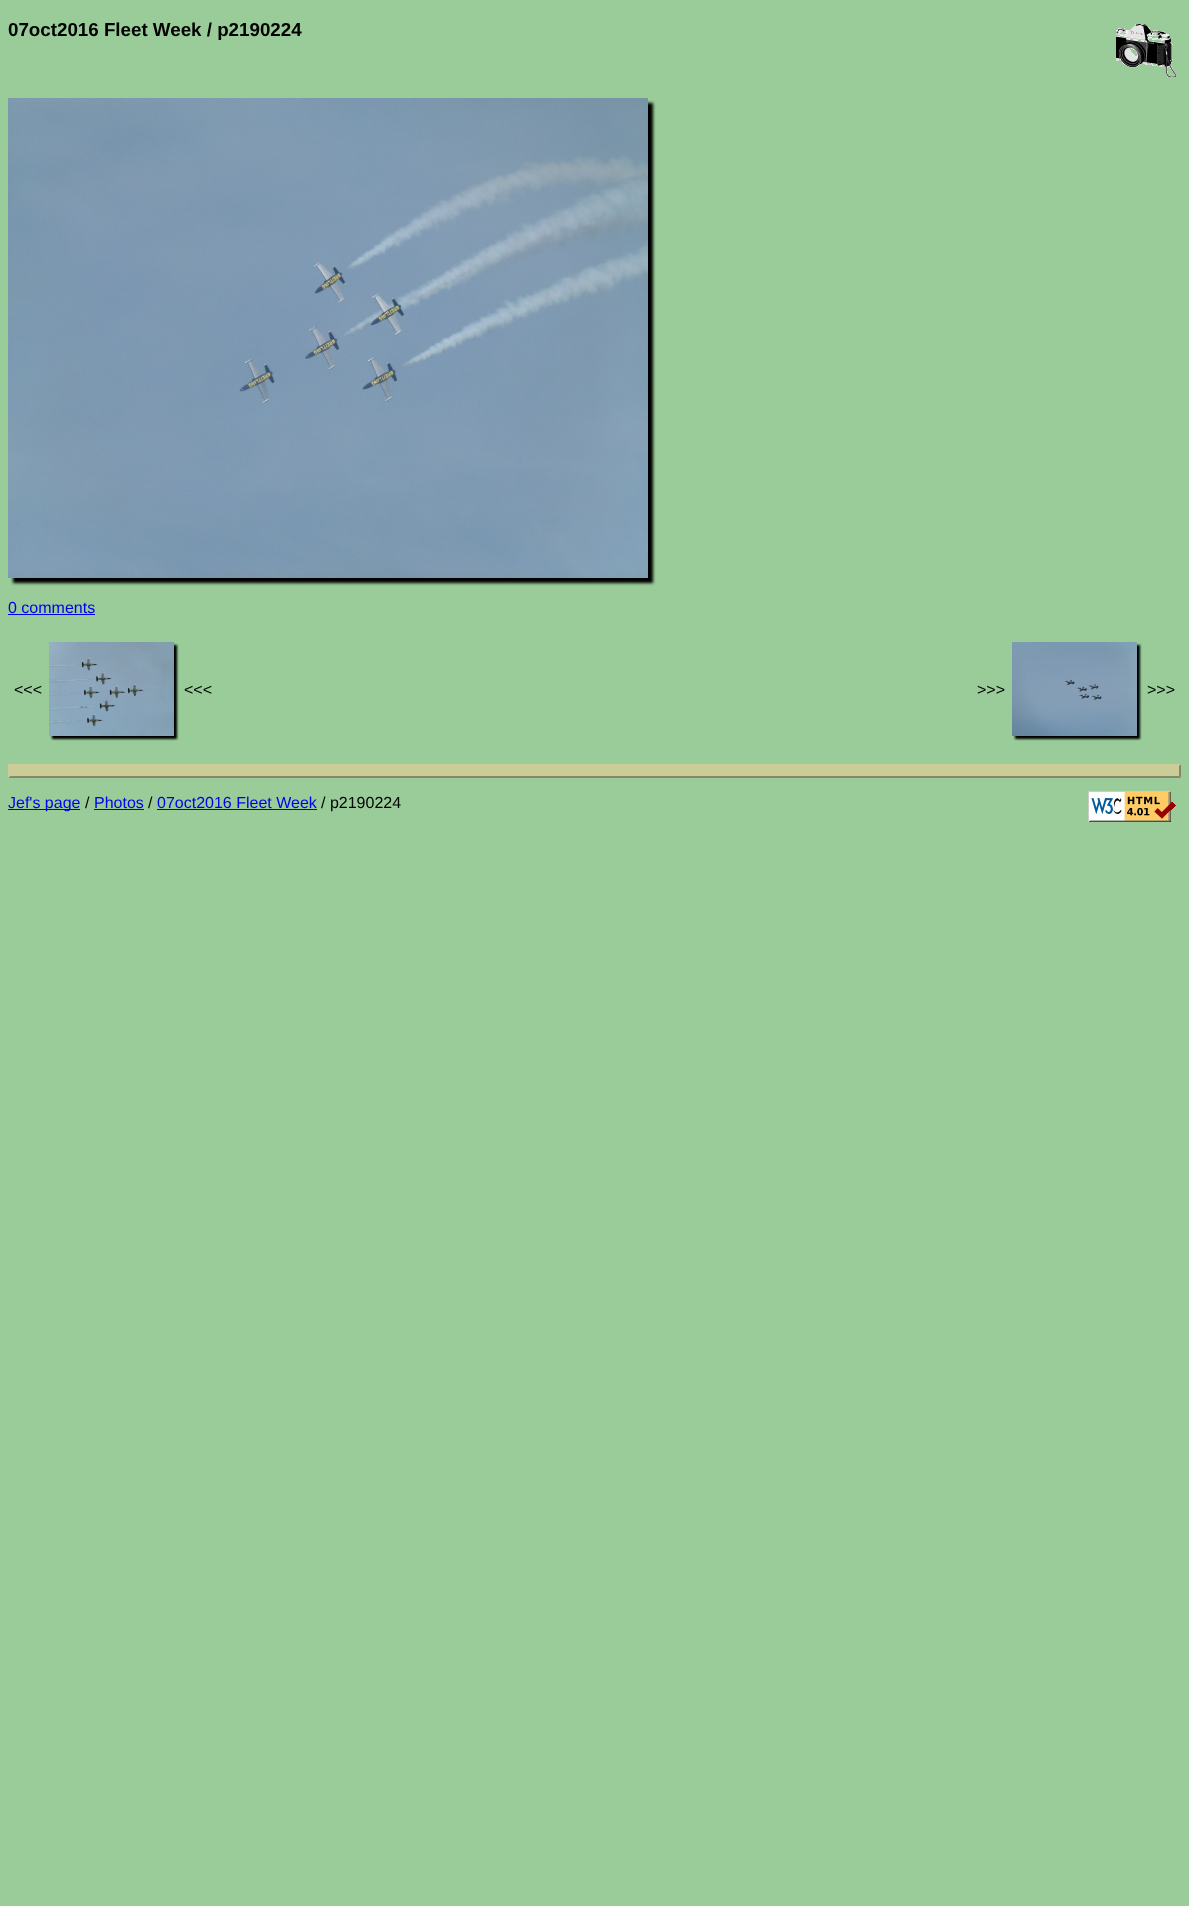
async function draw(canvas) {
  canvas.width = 1189;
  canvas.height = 1906;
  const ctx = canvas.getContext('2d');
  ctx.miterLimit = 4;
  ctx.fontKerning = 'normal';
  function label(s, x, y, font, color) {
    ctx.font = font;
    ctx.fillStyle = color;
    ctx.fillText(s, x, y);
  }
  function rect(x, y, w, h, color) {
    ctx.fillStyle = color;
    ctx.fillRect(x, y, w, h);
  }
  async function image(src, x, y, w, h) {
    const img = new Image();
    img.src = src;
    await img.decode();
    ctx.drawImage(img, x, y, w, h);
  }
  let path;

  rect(0, 0, 1189, 1906, '#9c9');
  label('07oct2016 Fleet Week / p2190224', 8, 36, 'bold 18.75px Liberation Sans', '#000');
  await image('assets/img1.png', 1116, 24, 60, 53);
  ctx.filter = 'blur(1.5px)';
  ctx.beginPath();
  ctx.rect(13, 103, 640, 480);
  ctx.fill();
  ctx.filter = 'none';
  await image('assets/img2.png', 8, 98, 640, 480);
  label('0 comments', 8, 613, '16px Liberation Sans', '#00e');
  rect(8, 614, 87, 1, '#00e');
  label('<<<', 14, 695, '16px Liberation Sans', '#000');
  ctx.filter = 'blur(1px)';
  ctx.beginPath();
  ctx.rect(52, 645, 125, 94);
  ctx.fill();
  ctx.filter = 'none';
  await image('assets/img3.png', 49, 642, 125, 94);
  label('<<<', 184, 695, '16px Liberation Sans', '#000');
  label('>>>', 977, 695, '16px Liberation Sans', '#000');
  ctx.filter = 'blur(1px)';
  ctx.beginPath();
  ctx.rect(1015, 645, 125, 94);
  ctx.fill();
  ctx.filter = 'none';
  await image('assets/img4.png', 1012, 642, 125, 94);
  label('>>>', 1147, 695, '16px Liberation Sans', '#000');
  rect(8, 764, 1173, 14, '#cc9');
  ctx.fillStyle = '#886';
  path = new Path2D('M1181 764V778L1179 776V766Z');
  ctx.fill(path);
  path = new Path2D('M1181 778H8L10 776H1179Z');
  ctx.fill(path);
  ctx.fillStyle = '#cc9';
  path = new Path2D('M8 778V764L10 766V776Z');
  ctx.fill(path);
  rect(8, 809, 72, 1, '#00e');
  label('Jef\'s page', 8, 808, '16px Liberation Sans', '#00e');
  label('/', 85, 808, '16px Liberation Sans', '#000');
  label('Photos', 94, 808, '16px Liberation Sans', '#00e');
  rect(94, 809, 50, 1, '#00e');
  label('/', 148, 808, '16px Liberation Sans', '#000');
  label('07oct2016 Fleet Week', 157, 808, '16px Liberation Sans', '#00e');
  rect(157, 809, 160, 1, '#00e');
  label('/ p2190224', 321, 808, '16px Liberation Sans', '#000');
  await image('assets/img5.png', 1088, 791, 88, 31);
}

draw(document.querySelector('canvas'));
